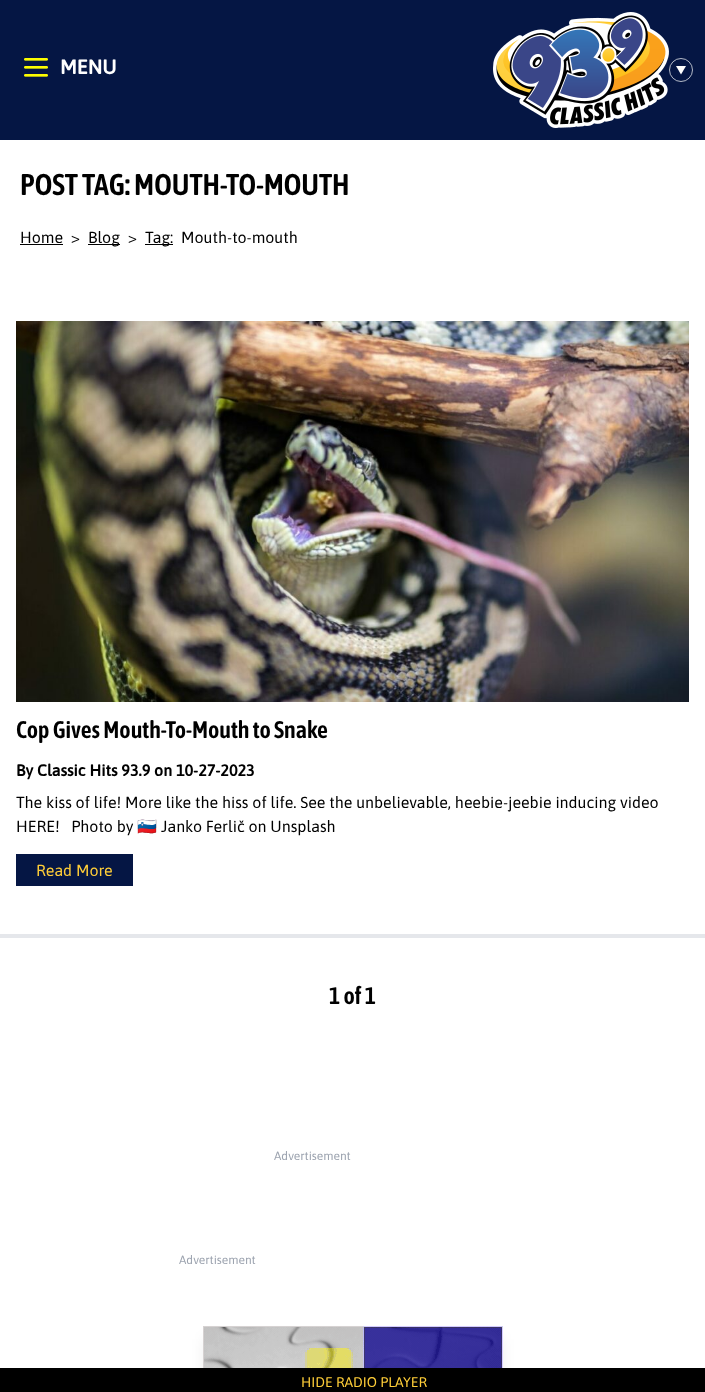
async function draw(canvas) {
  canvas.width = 705;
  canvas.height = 1392;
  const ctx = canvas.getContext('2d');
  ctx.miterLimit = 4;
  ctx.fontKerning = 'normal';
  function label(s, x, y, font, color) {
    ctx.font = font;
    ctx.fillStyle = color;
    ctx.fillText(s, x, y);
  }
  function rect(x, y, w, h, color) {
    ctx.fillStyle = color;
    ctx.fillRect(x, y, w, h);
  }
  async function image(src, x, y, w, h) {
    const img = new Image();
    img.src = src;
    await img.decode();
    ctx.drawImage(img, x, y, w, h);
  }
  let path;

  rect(0, 0, 705, 1392, '#fff');
  rect(0, 0, 705, 140, '#051644');
  await image('assets/img1.png', 24, 58, 24, 19);
  label('MENU', 60, 74, 'bold 20px Asap', '#fff');
  await image('assets/img2.png', 493, 12, 176, 116);
  path = new Path2D('M681 74.5L676 66H686Z');
  ctx.fill(path);
  ctx.beginPath();
  ctx.arc(681, 70, 11.5, 0, 2 * Math.PI);
  ctx.strokeStyle = '#fff';
  ctx.lineWidth = 0.7;
  ctx.stroke();
  label('POST TAG: MOUTH-TO-MOUTH', 20, 195, '600 30px Asap Condensed', '#000');
  label('Home', 20, 243, '16px Asap', '#000');
  rect(20, 244, 43, 1, '#000');
  label('>', 71, 243, '16px Asap', '#000');
  rect(88, 244, 32, 1, '#000');
  label('Blog', 88, 243, '16px Asap', '#000');
  label('>', 128, 243, '16px Asap', '#000');
  rect(145, 244, 28, 1, '#000');
  label('Tag:', 145, 243, '16px Asap', '#000');
  label('Mouth-to-mouth', 181, 243, '16px Asap', '#000');
  rect(0, 934, 705, 4, '#e5e7eb');
  await image('assets/img3.png', 16, 321, 673, 381);
  label('Cop Gives Mouth-To-Mouth to Snake', 16, 738, '600 24px Asap Condensed', '#000');
  label('By Classic Hits 93.9 on 10-27-2023', 16, 776, 'bold 16px Asap', '#000');
  label('The kiss of life! More like the hiss of life. See the unbelievable, heebie-jeebie inducing video', 16, 808, '16px Asap', '#000');
  label('HERE!   Photo by', 16, 832, '16px Asap', '#000');
  label('🇸🇮', 137, 832, '16px Noto Color Emoji', '#000');
  label('Janko Ferlič on Unsplash', 161, 832, '16px Asap', '#000');
  rect(16, 854, 117, 32, '#051644');
  label('Read More', 36, 876, '16px Asap', '#ffce38');
  label('1 of 1', 329, 1004, '600 24px Asap Condensed', '#000');
  label('Advertisement', 274, 1160, '12px Asap', '#9ca3af');
  label('Advertisement', 179, 1264, '12px Asap', '#9ca3af');
  ctx.fillStyle = '#0000001a';
  ctx.filter = 'blur(7.5px)';
  ctx.beginPath();
  ctx.rect(206, 1339, 294, 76);
  ctx.fill();
  ctx.filter = 'none';
  await image('assets/img4.png', 203, 1326, 300, 42);
  rect(0, 1368, 705, 24, '#000');
  label('HIDE RADIO PLAYER', 301, 1387, '14px Asap', '#ffce38');
}

draw(document.querySelector('canvas'));
